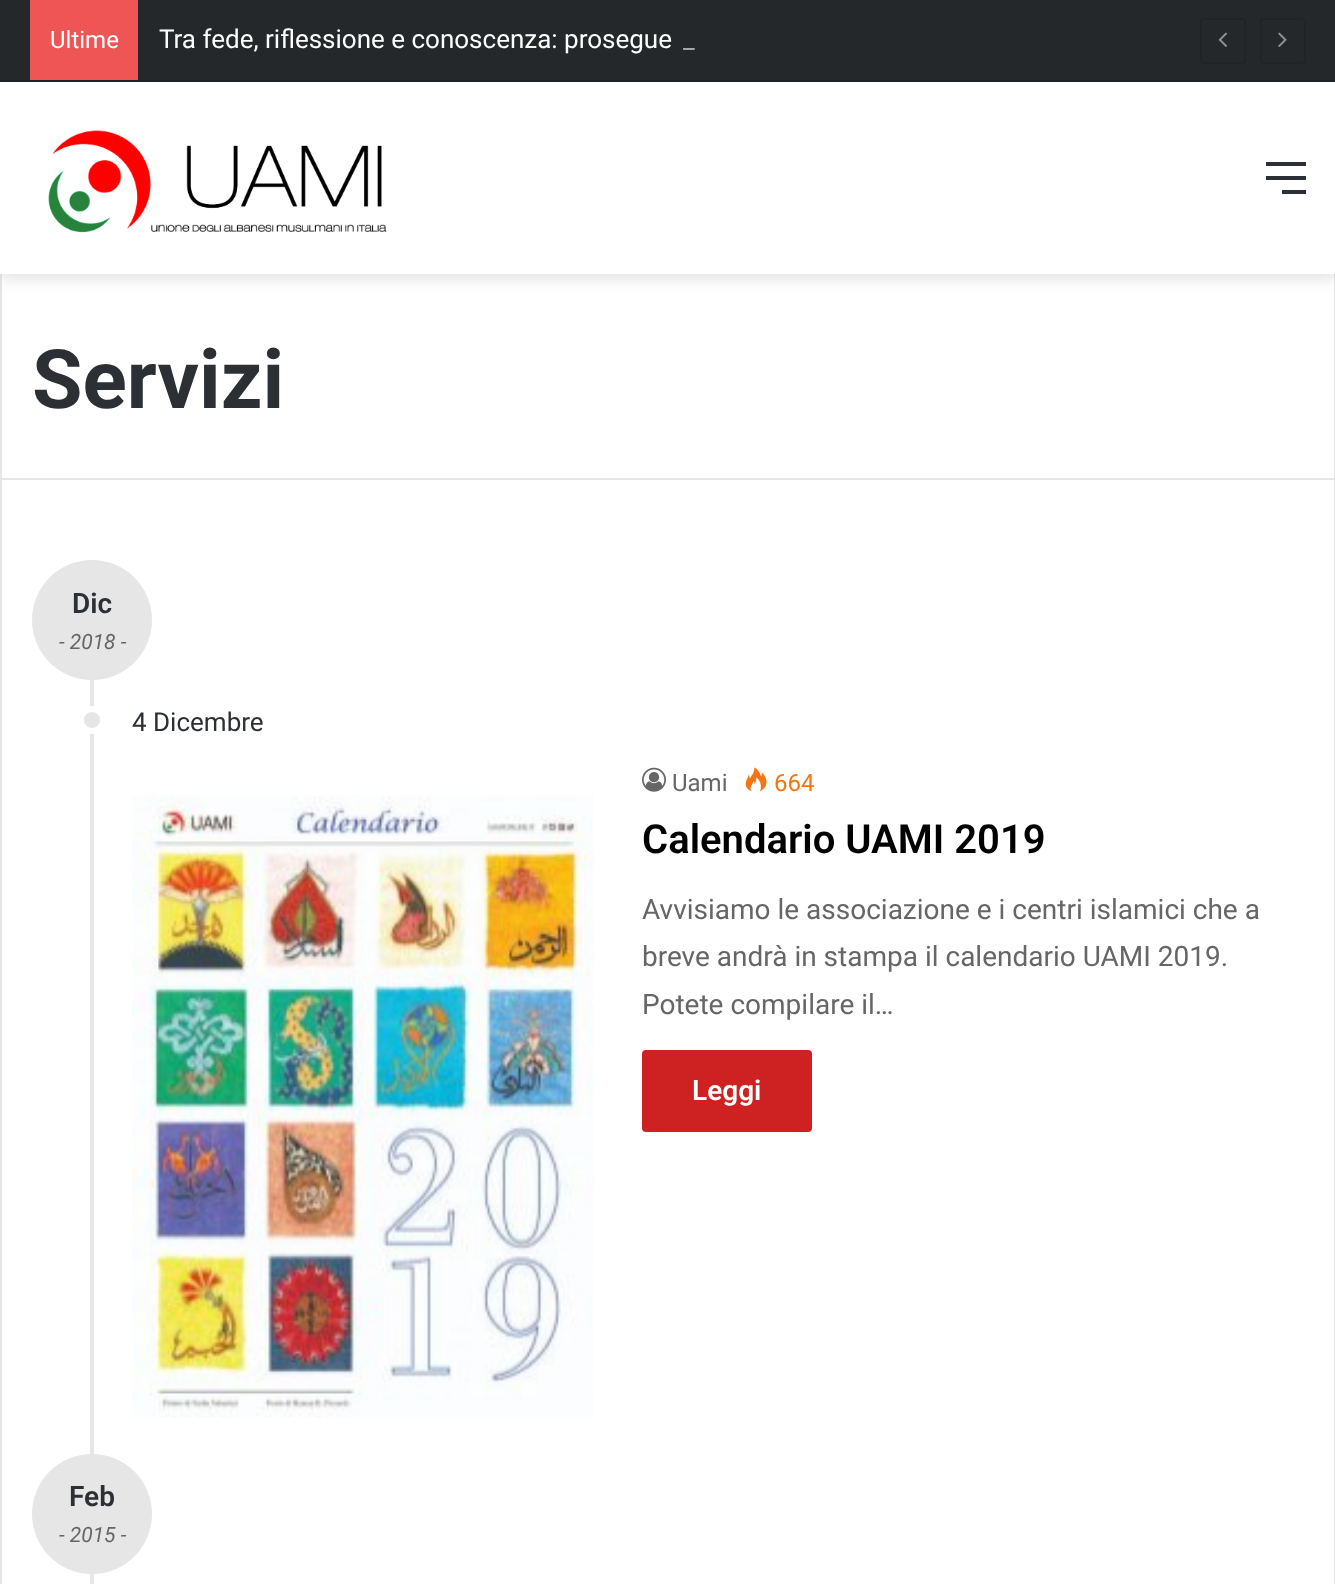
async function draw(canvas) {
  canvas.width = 1335;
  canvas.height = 1584;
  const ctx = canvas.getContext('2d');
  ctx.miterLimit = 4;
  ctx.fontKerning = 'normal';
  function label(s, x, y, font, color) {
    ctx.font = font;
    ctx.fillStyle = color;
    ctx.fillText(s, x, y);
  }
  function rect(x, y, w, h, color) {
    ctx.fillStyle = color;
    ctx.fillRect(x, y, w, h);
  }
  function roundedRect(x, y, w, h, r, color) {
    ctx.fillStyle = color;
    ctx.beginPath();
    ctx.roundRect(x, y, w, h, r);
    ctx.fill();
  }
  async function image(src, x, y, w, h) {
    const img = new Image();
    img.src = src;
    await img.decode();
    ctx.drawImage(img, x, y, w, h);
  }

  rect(0, 0, 1335, 1584, '#fff');
  ctx.strokeStyle = '#e6e6e6';
  ctx.lineWidth = 2;
  ctx.strokeRect(1, 201, 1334, 278);
  ctx.fillStyle = '#0000001a';
  ctx.filter = 'blur(7px)';
  ctx.beginPath();
  ctx.rect(0, 88, 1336, 192);
  ctx.fill();
  ctx.filter = 'none';
  rect(0, 0, 1335, 80, '#25282b');
  rect(0, 80, 1335, 2, '#212427');
  rect(30, 0, 108, 80, '#f05555');
  label('Ultime', 50, 48, '24px Roboto', '#fff');
  label('Tra fede, riflessione e conoscenza: prosegue', 159, 48, '26px Roboto', '#fff');
  label('_', 683, 48, '26px Roboto', '#aaa');
  ctx.beginPath();
  ctx.roundRect(1201, 19, 44, 44, 3);
  ctx.strokeStyle = '#212427';
  ctx.stroke();
  await image('assets/img1.png', 1218, 32, 9, 15);
  ctx.beginPath();
  ctx.roundRect(1261, 19, 44, 44, 3);
  ctx.stroke();
  await image('assets/img2.png', 1278, 32, 9, 15);
  rect(0, 82, 1335, 192, '#fff');
  await image('assets/img3.png', 48, 130, 339, 103);
  rect(1266, 176, 40, 4, '#2c2f34');
  rect(1266, 162, 40, 4, '#2c2f34');
  rect(1282, 190, 24, 4, '#2c2f34');
  label('Servizi', 32, 408, 'bold 82px Roboto', '#2c2f34');
  rect(1334, 480, 1, 1104, '#e6e6e6');
  rect(0, 480, 2, 1104, '#e6e6e6');
  rect(90, 560, 4, 1024, '#e6e6e6');
  ctx.beginPath();
  ctx.arc(92, 620, 60, 0, 2 * Math.PI);
  ctx.fill();
  label('Dic', 72, 613, '600 28px Roboto', '#2c2f34');
  label('- 2018 -', 59, 649, 'italic 21px Roboto', '#666');
  ctx.fillStyle = '#e6e6e6';
  ctx.beginPath();
  ctx.arc(92, 720, 11, 0, 2 * Math.PI);
  ctx.fill();
  ctx.strokeStyle = '#fff';
  ctx.lineWidth = 6;
  ctx.stroke();
  label('4 Dicembre', 132, 731, '26px Roboto', '#2c2f34');
  await image('assets/img4.png', 132, 795, 462, 623);
  await image('assets/img5.png', 642, 767, 24, 25);
  label('Uami', 672, 791, '24px Roboto', '#666');
  await image('assets/img6.png', 745, 767, 22, 25);
  label('664', 774, 791, '24px Roboto', '#f47512');
  label('Calendario UAMI 2019', 642, 853, '600 40px Roboto', '#000');
  label('Avvisiamo le associazione e i centri islamici che a', 642, 919, '28px Roboto', '#666');
  label('breve andrà in stampa il calendario UAMI 2019.', 642, 966, '28px Roboto', '#666');
  label('Potete compilare il…', 642, 1014, '28px Roboto', '#666');
  roundedRect(642, 1050, 170, 82, 4, '#cd2122');
  label('Leggi', 692, 1100, '600 28px Roboto', '#fff');
  ctx.fillStyle = '#e6e6e6';
  ctx.beginPath();
  ctx.arc(92, 1514, 60, 0, 2 * Math.PI);
  ctx.fill();
  label('Feb', 69, 1506, '600 28px Roboto', '#2c2f34');
  label('- 2015 -', 59, 1542, 'italic 21px Roboto', '#666');
}

draw(document.querySelector('canvas'));
